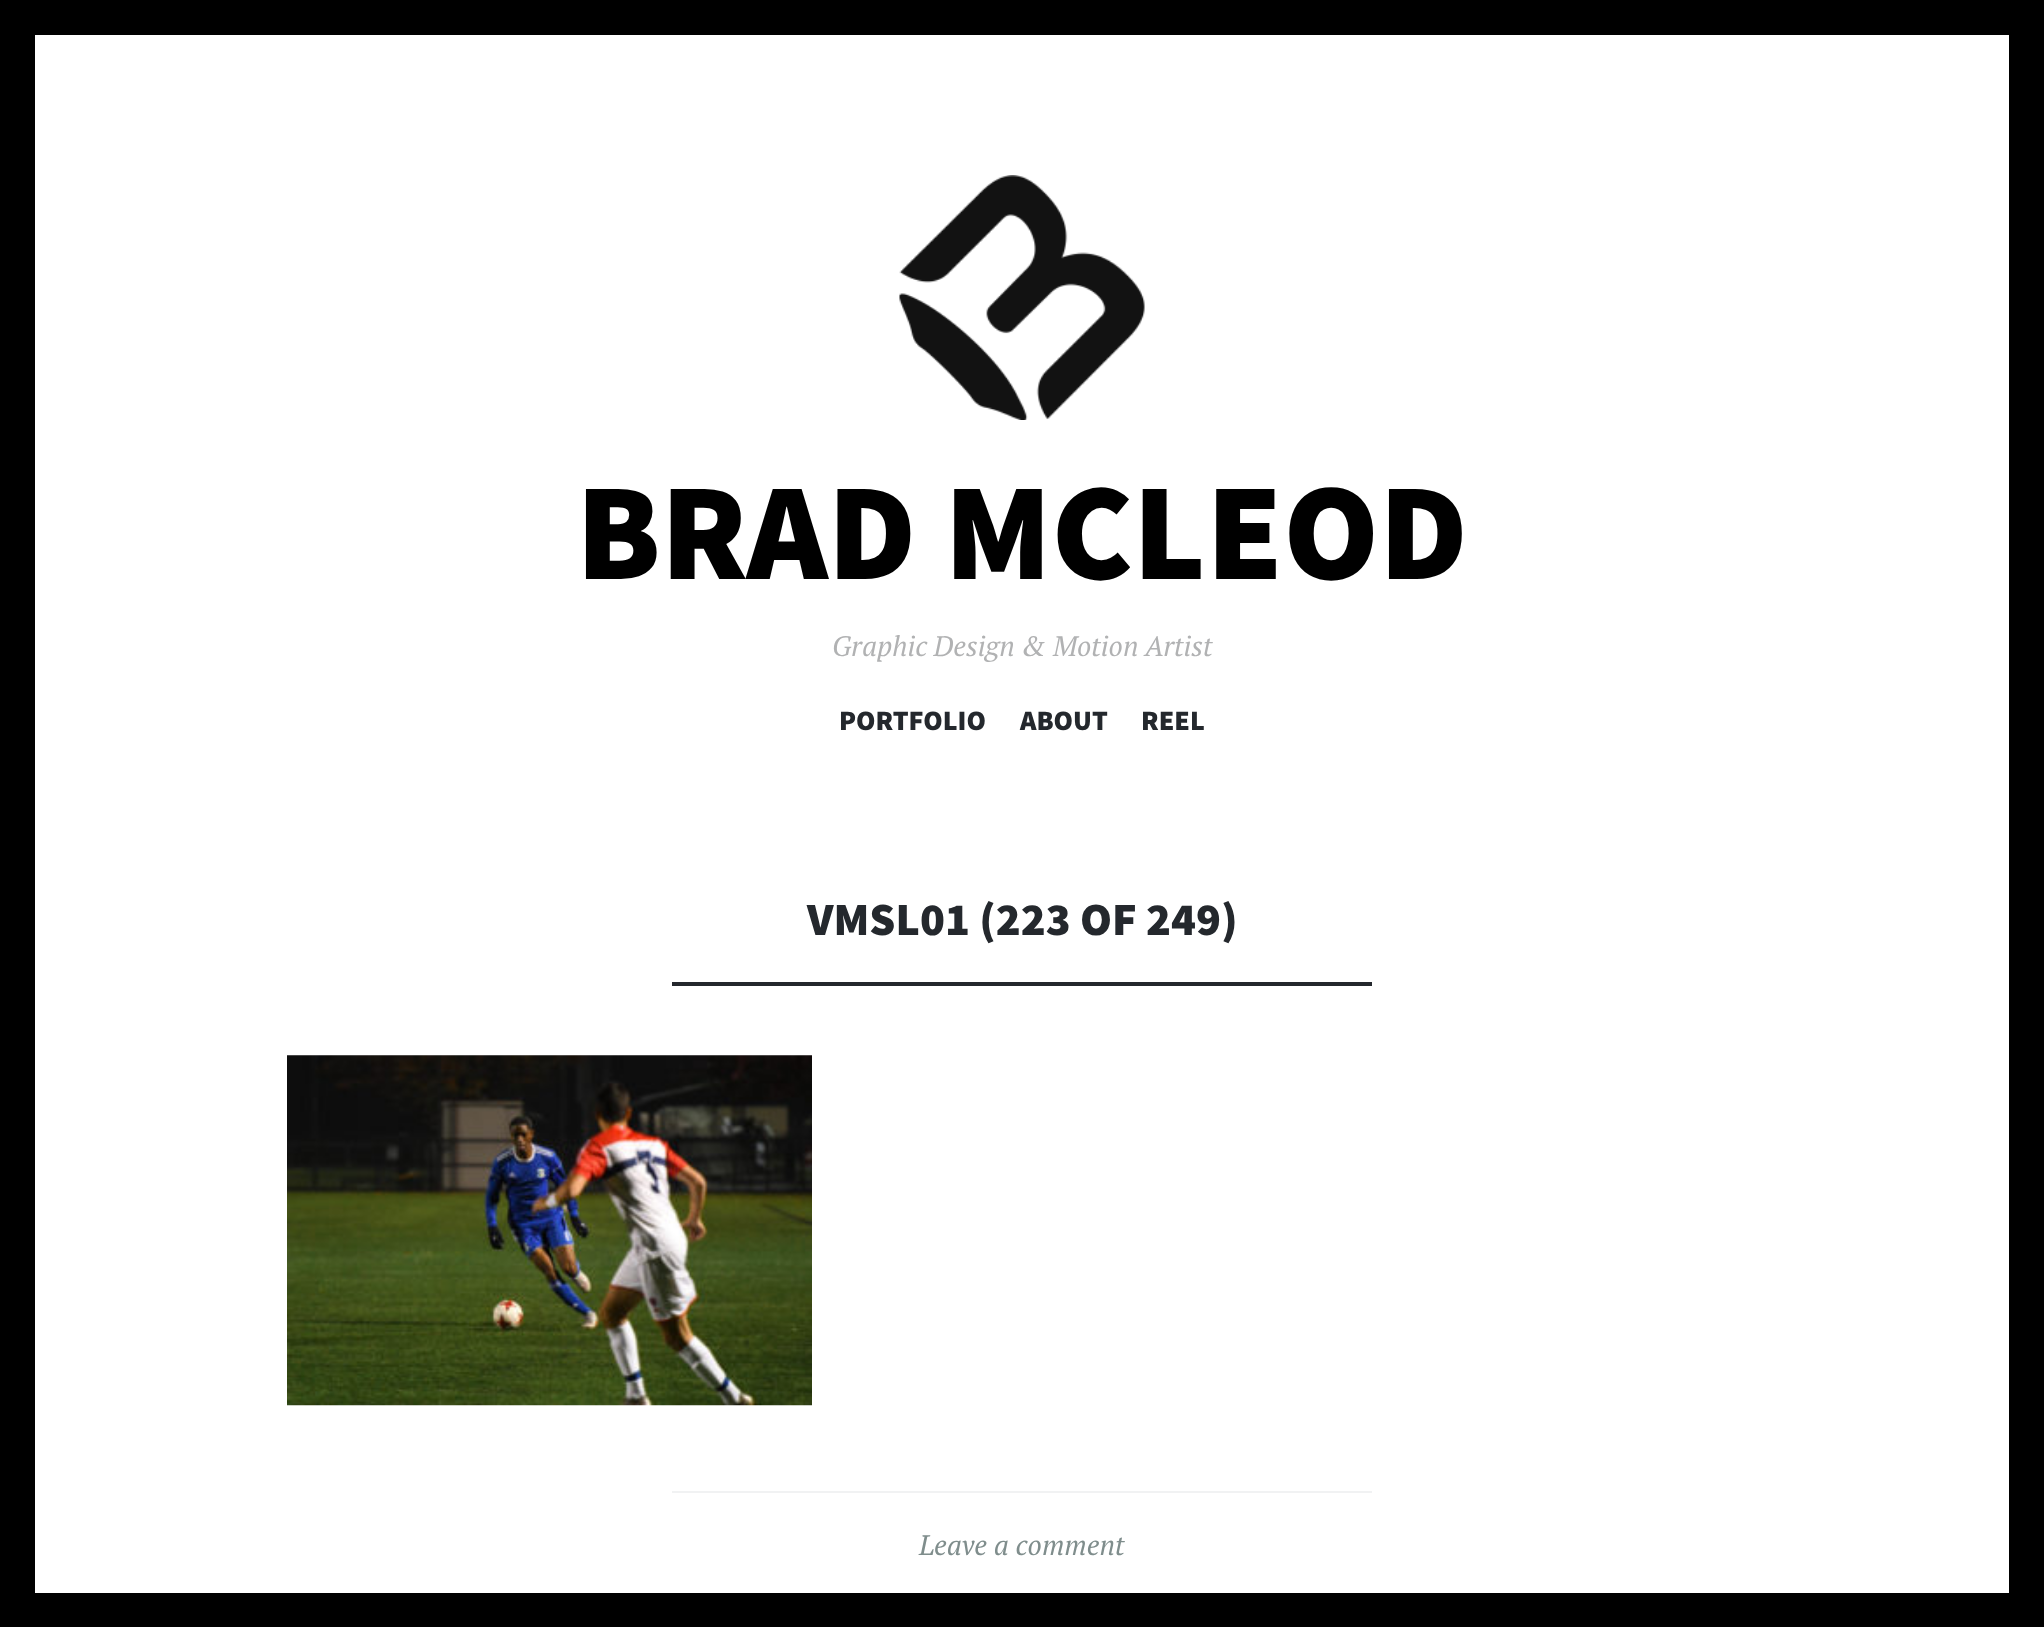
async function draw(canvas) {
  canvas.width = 2044;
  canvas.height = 1627;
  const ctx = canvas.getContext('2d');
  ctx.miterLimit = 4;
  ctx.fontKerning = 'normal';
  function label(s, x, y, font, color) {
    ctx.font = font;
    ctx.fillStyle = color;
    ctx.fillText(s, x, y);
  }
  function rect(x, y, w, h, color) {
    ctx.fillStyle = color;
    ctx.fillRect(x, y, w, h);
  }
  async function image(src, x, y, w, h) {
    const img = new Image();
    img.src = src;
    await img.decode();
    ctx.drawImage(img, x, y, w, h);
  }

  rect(0, 0, 2044, 1627, '#000');
  rect(35, 35, 1974, 1558, '#fff');
  await image('assets/img1.png', 899, 175, 246, 245);
  label('BRAD MCLEOD', 576, 579, '900 138.5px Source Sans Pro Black', '#000');
  label('Graphic Design & Motion Artist', 832, 656, 'italic 28.1px PT Serif', '#b1b2b3');
  label('PORTFOLIO', 839, 730, '900 28.1px Source Sans Pro Black', '#24282d');
  label('ABOUT', 1020, 730, '900 28.1px Source Sans Pro Black', '#24282d');
  label('REEL', 1141, 730, '900 28.1px Source Sans Pro Black', '#24282d');
  label('VMSL01 (223 OF 249)', 807, 935, '900 46.25px Source Sans Pro Black', '#24282d');
  rect(672, 982, 700, 4, '#24282d');
  await image('assets/img2.png', 287, 1055, 525, 351);
  rect(672, 1491, 700, 2, '#f1f2f3');
  label('Leave a comment', 919, 1555, 'italic 28.1px PT Serif', '#7f8d8c');
}

draw(document.querySelector('canvas'));
